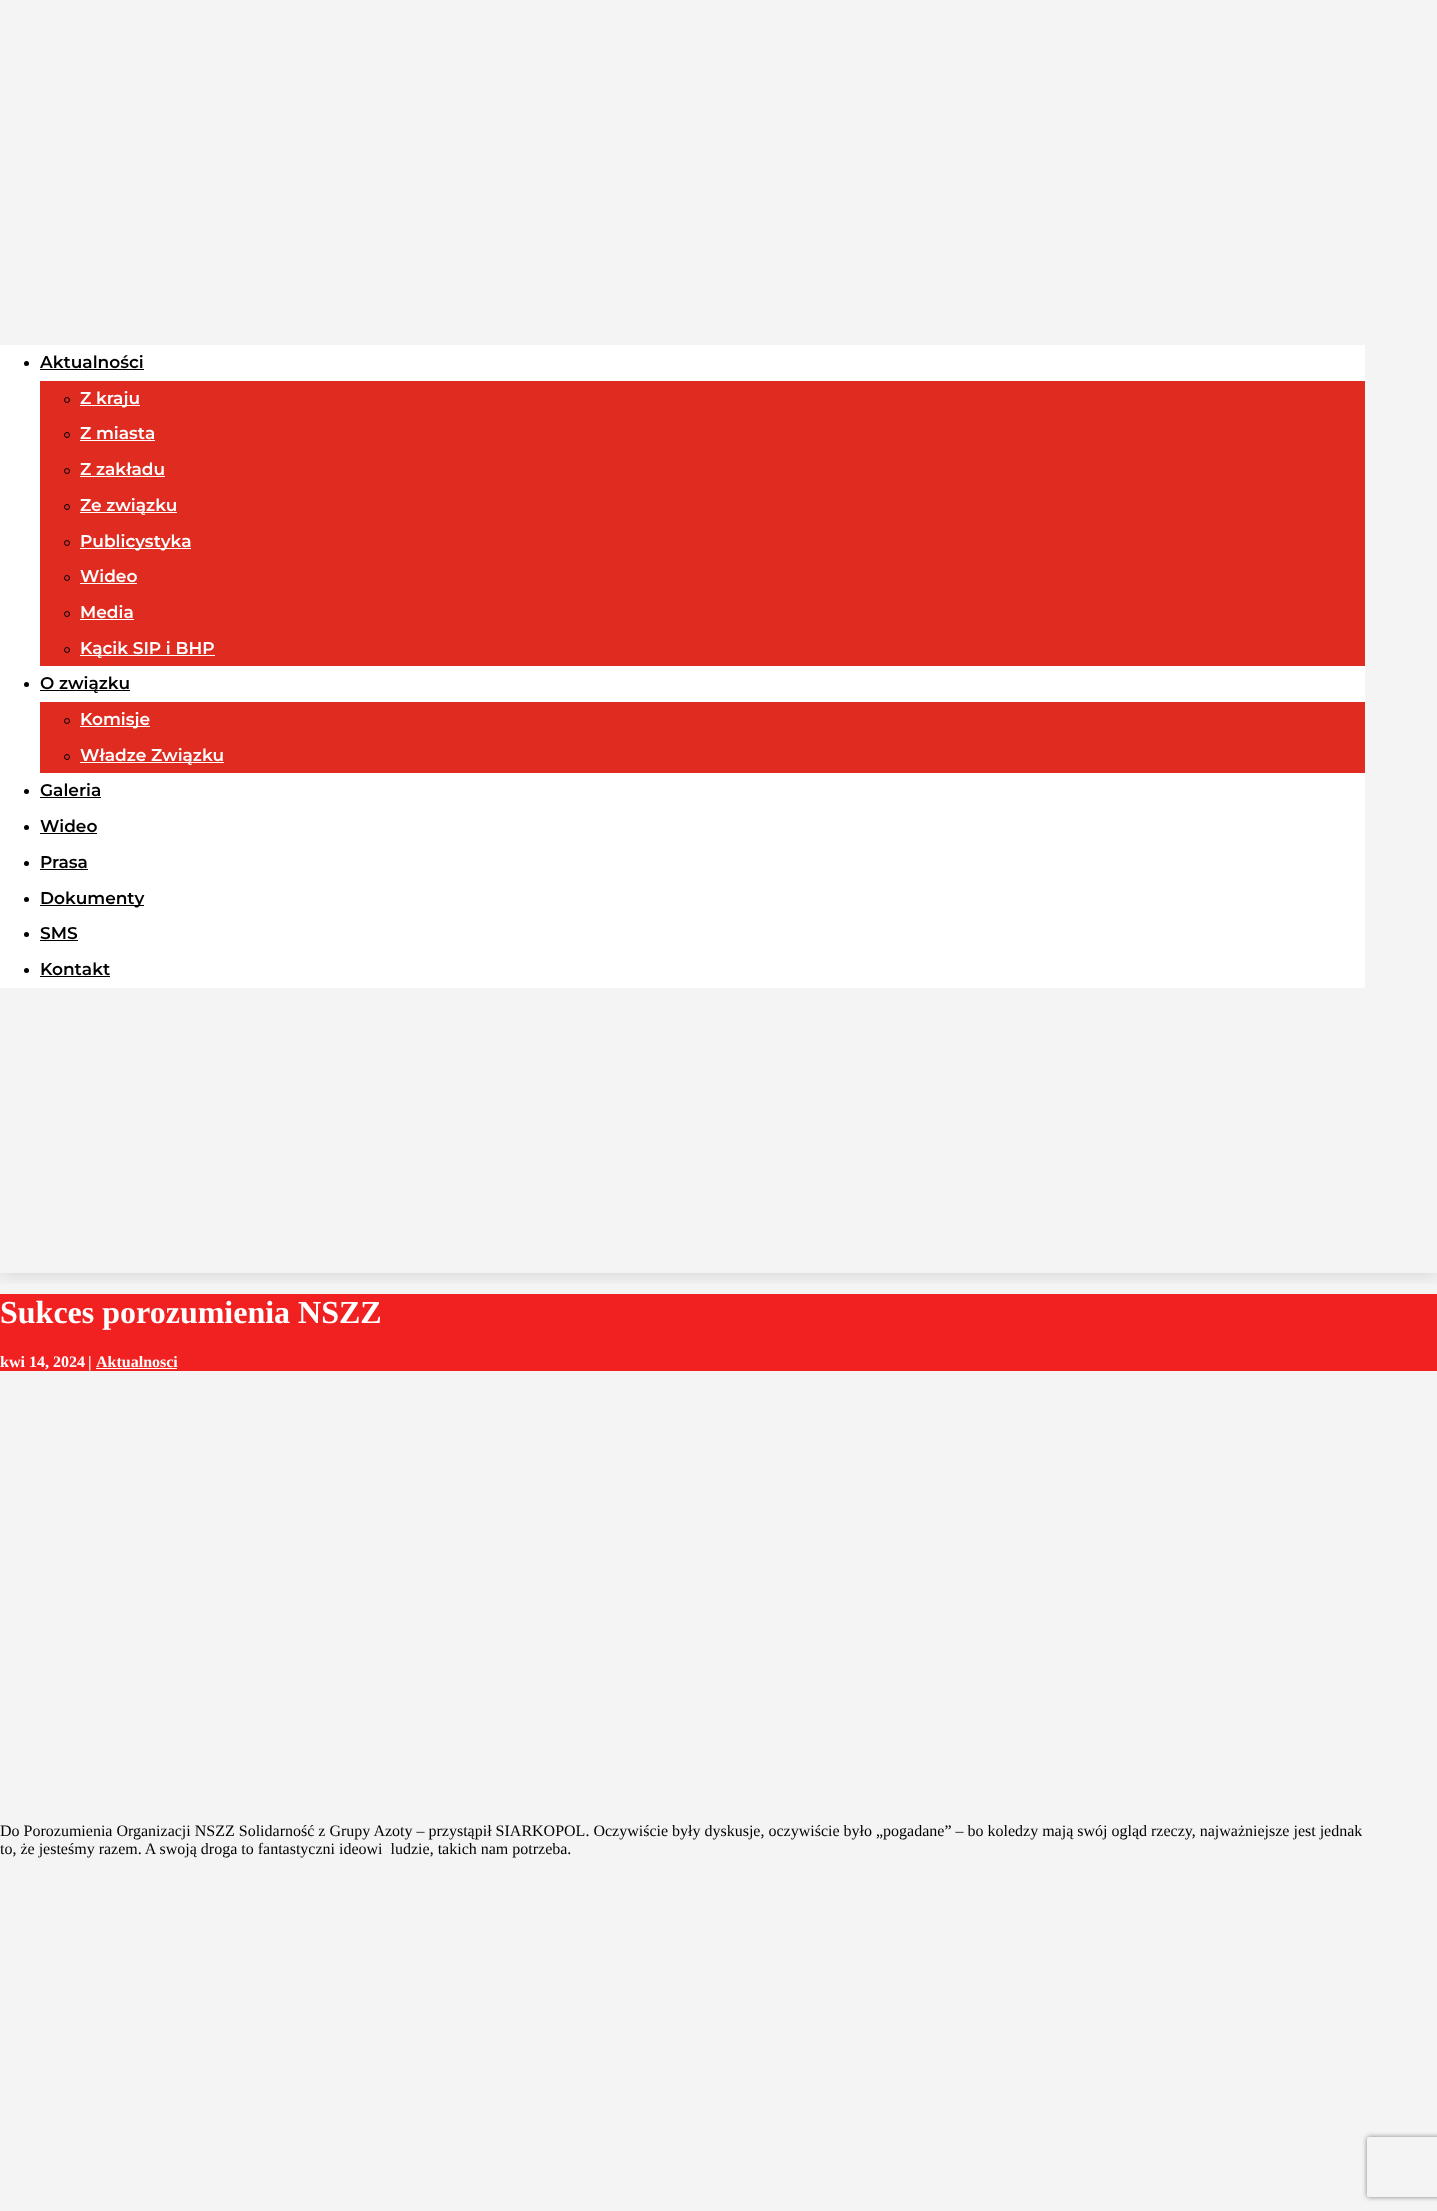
async function draw(canvas) {
  canvas.width = 1437;
  canvas.height = 2211;
  const ctx = canvas.getContext('2d');
  ctx.miterLimit = 4;
  ctx.fontKerning = 'normal';
  function label(s, x, y, font, color) {
    ctx.font = font;
    ctx.fillStyle = color;
    ctx.fillText(s, x, y);
  }
  function rect(x, y, w, h, color) {
    ctx.fillStyle = color;
    ctx.fillRect(x, y, w, h);
  }
  let path;

  rect(0, 0, 1437, 2211, '#f4f4f4');
  ctx.save();
  ctx.beginPath();
  ctx.rect(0, 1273, 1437, 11);
  ctx.clip();
  ctx.fillStyle = '#0000001f';
  ctx.filter = 'blur(9px)';
  ctx.beginPath();
  ctx.rect(0, 2, 1437, 1273);
  ctx.fill();
  ctx.filter = 'none';
  ctx.restore();
  rect(0, 345, 1365, 643, '#fff');
  ctx.fillStyle = '#000';
  ctx.beginPath();
  ctx.arc(26.5, 363.5, 2.5, 0, 2 * Math.PI);
  ctx.fill();
  label('Aktualności', 40, 368, '100 17px Montserrat', '#000');
  rect(40, 369, 104, 1, '#000');
  rect(40, 381, 1325, 285, '#e02b20');
  ctx.beginPath();
  ctx.arc(67, 400, 2.5, 0, 2 * Math.PI);
  ctx.strokeStyle = '#000';
  ctx.stroke();
  rect(80, 405, 60, 1, '#fff');
  label('Z kraju', 80, 404, '100 17px Montserrat', '#fff');
  ctx.beginPath();
  ctx.arc(67, 435, 2.5, 0, 2 * Math.PI);
  ctx.stroke();
  label('Z miasta', 80, 439, '100 17px Montserrat', '#fff');
  rect(80, 440, 75, 1, '#fff');
  ctx.beginPath();
  ctx.arc(67, 471, 2.5, 0, 2 * Math.PI);
  ctx.stroke();
  label('Z zakładu', 80, 475, '100 17px Montserrat', '#fff');
  rect(80, 476, 85, 1, '#fff');
  ctx.beginPath();
  ctx.arc(67, 507, 2.5, 0, 2 * Math.PI);
  ctx.stroke();
  rect(80, 512, 97, 1, '#fff');
  label('Ze związku', 80, 511, '100 17px Montserrat', '#fff');
  ctx.beginPath();
  ctx.arc(67, 543, 2.5, 0, 2 * Math.PI);
  ctx.stroke();
  rect(80, 548, 111, 1, '#fff');
  label('Publicystyka', 80, 547, '100 17px Montserrat', '#fff');
  ctx.beginPath();
  ctx.arc(67, 578, 2.5, 0, 2 * Math.PI);
  ctx.stroke();
  label('Wideo', 80, 582, '100 17px Montserrat', '#fff');
  rect(80, 583, 57, 1, '#fff');
  ctx.beginPath();
  ctx.arc(67, 614, 2.5, 0, 2 * Math.PI);
  ctx.stroke();
  label('Media', 80, 618, '100 17px Montserrat', '#fff');
  rect(80, 619, 54, 1, '#fff');
  ctx.beginPath();
  ctx.arc(67, 650, 2.5, 0, 2 * Math.PI);
  ctx.stroke();
  rect(80, 655, 135, 1, '#fff');
  label('Kącik SIP i BHP', 80, 654, '100 17px Montserrat', '#fff');
  ctx.fillStyle = '#000';
  ctx.beginPath();
  ctx.arc(26.5, 684.5, 2.5, 0, 2 * Math.PI);
  ctx.fill();
  rect(40, 690, 90, 1, '#000');
  label('O związku', 40, 689, '100 17px Montserrat', '#000');
  rect(40, 702, 1325, 71, '#e02b20');
  ctx.beginPath();
  ctx.arc(67, 721, 2.5, 0, 2 * Math.PI);
  ctx.stroke();
  rect(80, 726, 70, 1, '#fff');
  label('Komisje', 80, 725, '100 17px Montserrat', '#fff');
  ctx.beginPath();
  ctx.arc(67, 757, 2.5, 0, 2 * Math.PI);
  ctx.stroke();
  rect(80, 762, 144, 1, '#fff');
  label('Władze Związku', 80, 761, '100 17px Montserrat', '#fff');
  ctx.fillStyle = '#000';
  ctx.beginPath();
  ctx.arc(26.5, 791.5, 2.5, 0, 2 * Math.PI);
  ctx.fill();
  label('Galeria', 40, 796, '100 17px Montserrat', '#000');
  rect(40, 797, 61, 1, '#000');
  ctx.beginPath();
  ctx.arc(26.5, 827.5, 2.5, 0, 2 * Math.PI);
  ctx.fill();
  label('Wideo', 40, 832, '100 17px Montserrat', '#000');
  rect(40, 833, 57, 1, '#000');
  ctx.beginPath();
  ctx.arc(26.5, 863.5, 2.5, 0, 2 * Math.PI);
  ctx.fill();
  label('Prasa', 40, 868, '100 17px Montserrat', '#000');
  rect(40, 869, 48, 1, '#000');
  ctx.beginPath();
  ctx.arc(26.5, 899.5, 2.5, 0, 2 * Math.PI);
  ctx.fill();
  rect(40, 905, 104, 1, '#000');
  label('Dokumenty', 40, 904, '100 17px Montserrat', '#000');
  ctx.beginPath();
  ctx.arc(26.5, 934.5, 2.5, 0, 2 * Math.PI);
  ctx.fill();
  label('SMS', 40, 939, '100 17px Montserrat', '#000');
  rect(40, 940, 38, 1, '#000');
  ctx.beginPath();
  ctx.arc(26.5, 970.5, 2.5, 0, 2 * Math.PI);
  ctx.fill();
  label('Kontakt', 40, 975, '100 17px Montserrat', '#000');
  rect(40, 976, 70, 1, '#000');
  rect(0, 1294, 1437, 77, '#f22121');
  label('Sukces porozumienia NSZZ', 0, 1323, 'bold 32px Liberation Serif', '#fff');
  label('kwi 14, 2024', 0, 1367, 'bold 16px Liberation Serif', '#fff');
  label('|', 88, 1367, 'bold 16px Liberation Serif', '#fff');
  label('Aktualnosci', 96, 1367, 'bold 16px Liberation Serif', '#fff');
  rect(96, 1368, 81, 1, '#fff');
  label('Do Porozumienia Organizacji NSZZ Solidarność z Grupy Azoty – przystąpił SIARKOPOL. Oczywiście były dyskusje, oczywiście było „pogadane” – bo koledzy mają swój ogląd rzeczy, najważniejsze jest jednak', 0, 1836, '16px Liberation Serif', '#000');
  label('to, że jesteśmy razem. A swoją droga to fantastyczni ideowi  ludzie, takich nam potrzeba.', 0, 1854, '16px Liberation Serif', '#000');
  ctx.save();
  path = new Path2D('M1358 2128H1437V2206H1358ZM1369 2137H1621C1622 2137 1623 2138 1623 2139V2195C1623 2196 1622 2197 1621 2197H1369C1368 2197 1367 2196 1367 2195V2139C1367 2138 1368 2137 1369 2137Z');
  ctx.clip(path, 'evenodd');
  ctx.fillStyle = '#808080';
  ctx.filter = 'blur(2.5px)';
  ctx.beginPath();
  ctx.roundRect(1367, 2137, 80, 60, 2);
  ctx.fill();
  ctx.filter = 'none';
  ctx.restore();
}

draw(document.querySelector('canvas'));
